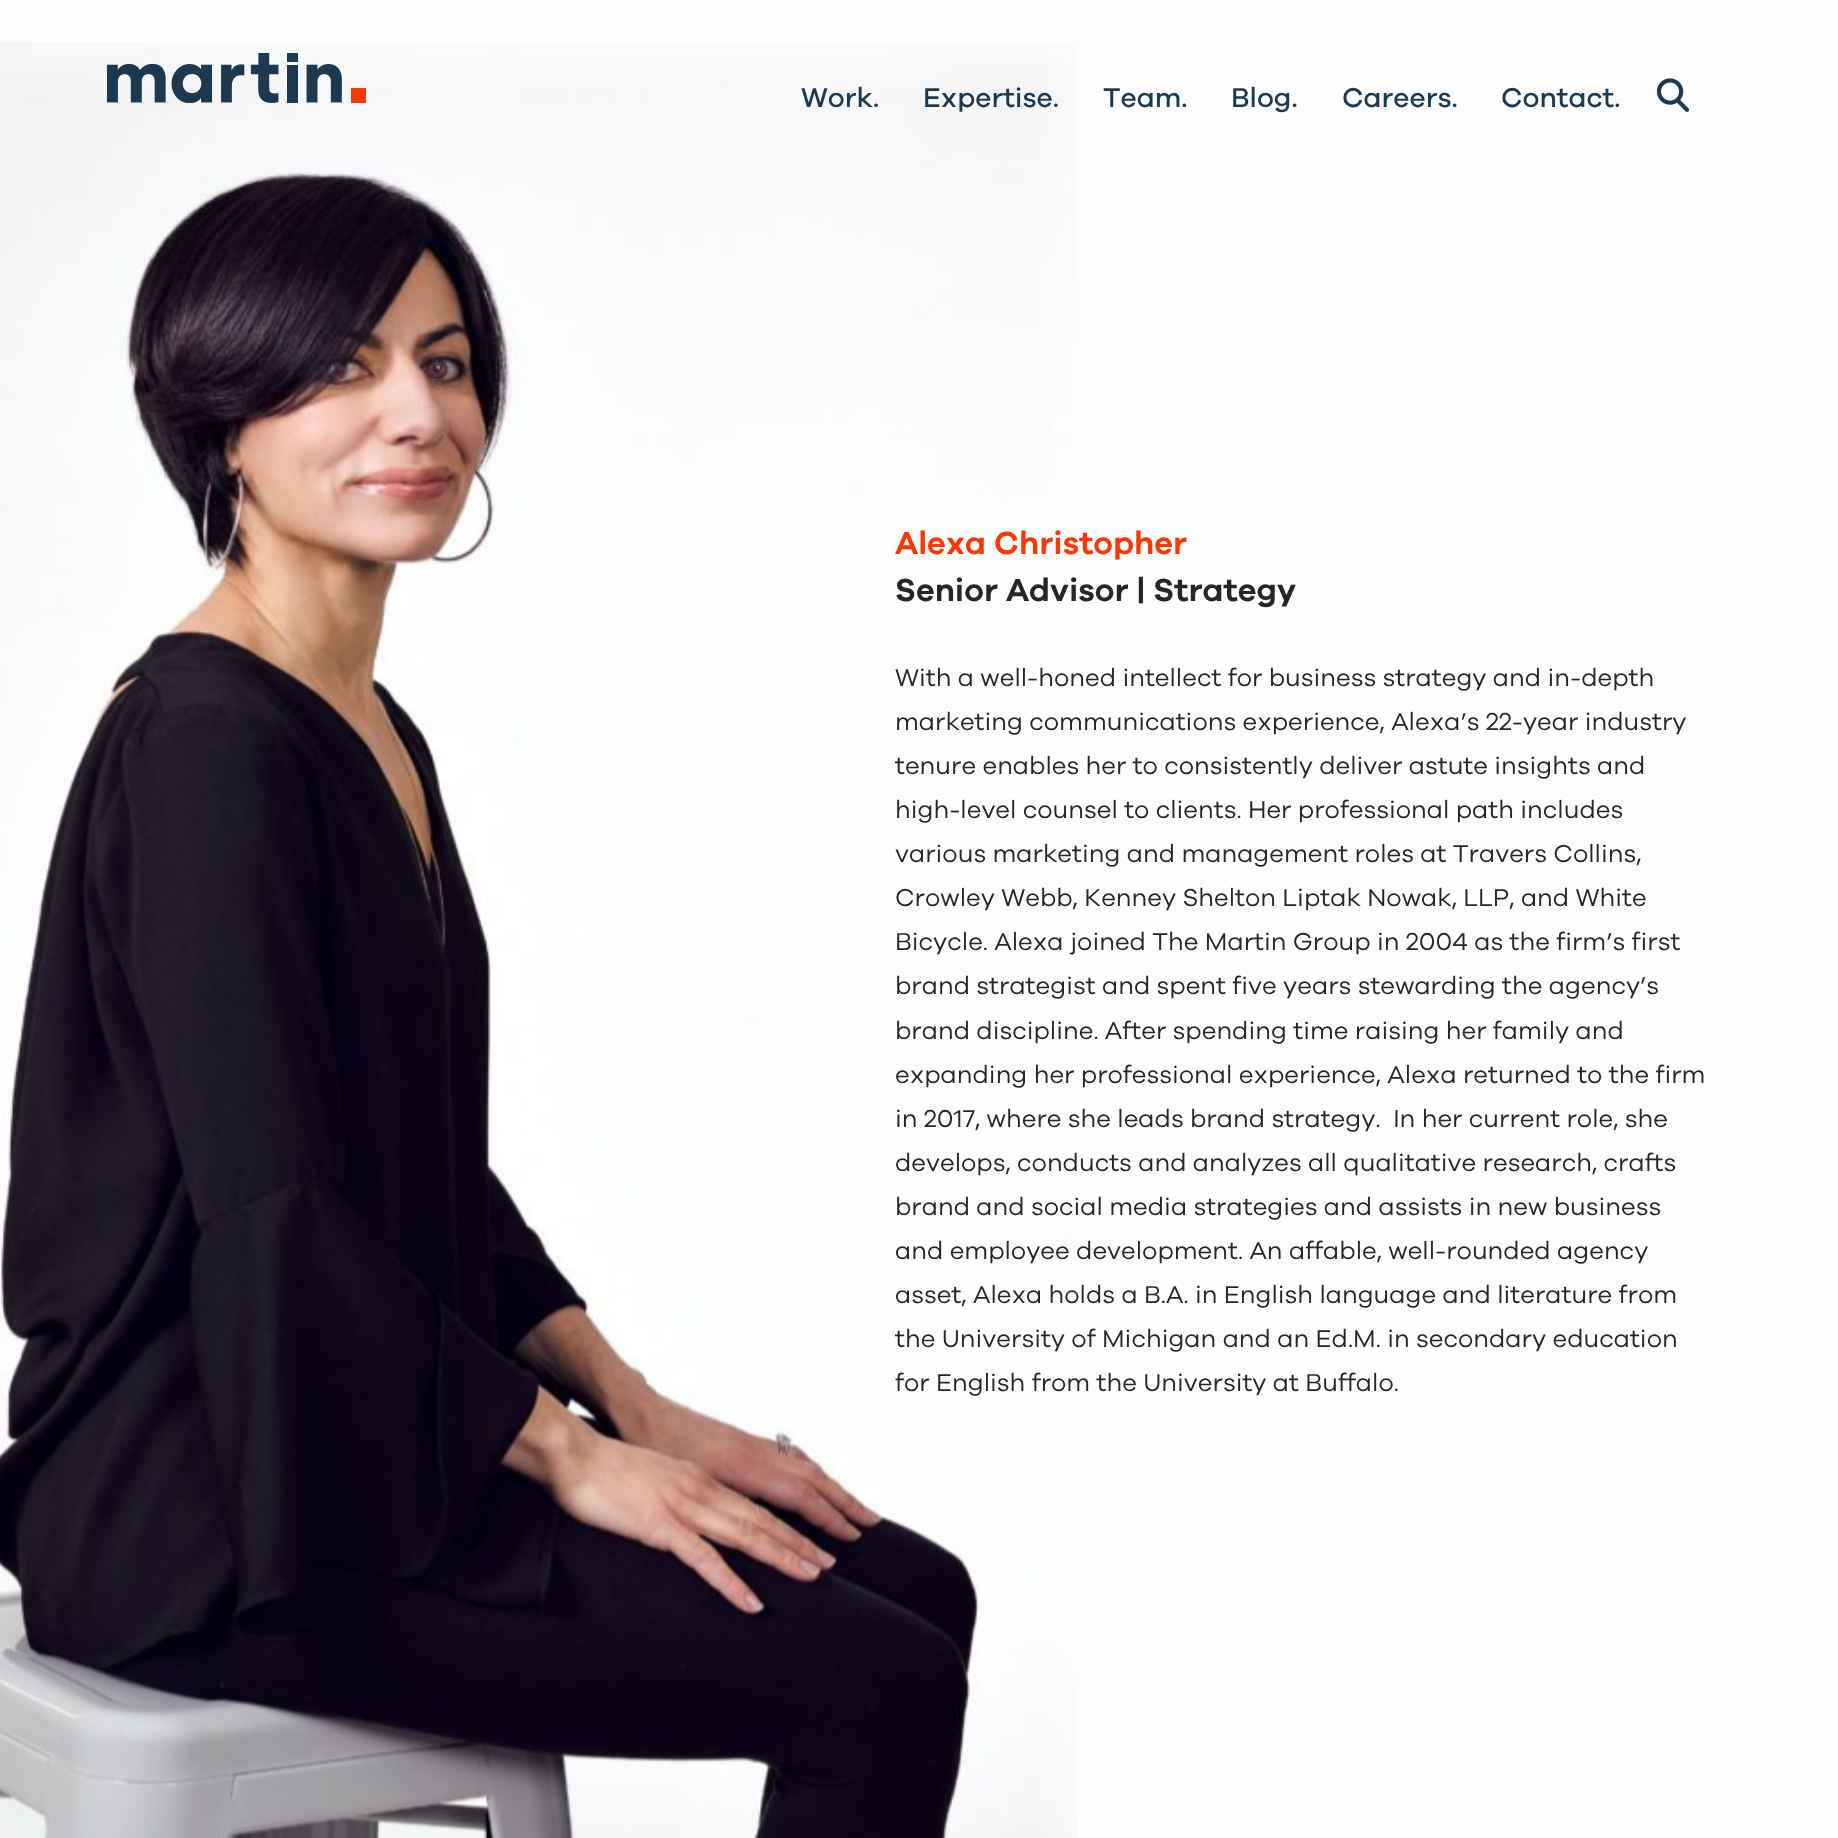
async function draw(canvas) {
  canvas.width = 1838;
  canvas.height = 1838;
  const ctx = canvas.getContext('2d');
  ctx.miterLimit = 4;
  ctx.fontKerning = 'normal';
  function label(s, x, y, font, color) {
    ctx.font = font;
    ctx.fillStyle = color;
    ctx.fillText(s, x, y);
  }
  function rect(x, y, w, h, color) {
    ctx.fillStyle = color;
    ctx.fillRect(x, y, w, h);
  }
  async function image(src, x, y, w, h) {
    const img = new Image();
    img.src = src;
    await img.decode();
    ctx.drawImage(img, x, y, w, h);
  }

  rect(0, 0, 1838, 1838, '#fcfdff');
  await image('assets/img3.png', 0, 42, 1078, 1796);
  await image('assets/img1.png', 106, 53, 260, 50);
  label('Work.', 801, 107, '28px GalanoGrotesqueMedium', '#1c394f');
  label('Expertise.', 923, 107, '28px GalanoGrotesqueMedium', '#1c394f');
  label('Team.', 1103, 107, '28px GalanoGrotesqueMedium', '#1c394f');
  label('Blog.', 1231, 107, '28px GalanoGrotesqueMedium', '#1c394f');
  label('Careers.', 1342, 107, '28px GalanoGrotesqueMedium', '#1c394f');
  label('Contact.', 1501, 107, '28px GalanoGrotesqueMedium', '#1c394f');
  await image('assets/img2.png', 1656, 78, 34, 34);
  label('Alexa Christopher', 895, 554, '32.75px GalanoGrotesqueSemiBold', '#ff3701');
  label('Senior Advisor | Strategy', 895, 601, '32.75px GalanoGrotesqueSemiBold', '#262626');
  label('With a well-honed intellect for business strategy and in-depth', 895, 686, '25.2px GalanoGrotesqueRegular', '#262626');
  label('marketing communications experience, Alexa’s 22-year industry', 895, 730, '25.2px GalanoGrotesqueRegular', '#262626');
  label('tenure enables her to consistently deliver astute insights and', 895, 774, '25.2px GalanoGrotesqueRegular', '#262626');
  label('high-level counsel to clients. Her professional path includes', 895, 818, '25.2px GalanoGrotesqueRegular', '#262626');
  label('various marketing and management roles at Travers Collins,', 895, 862, '25.2px GalanoGrotesqueRegular', '#262626');
  label('Crowley Webb, Kenney Shelton Liptak Nowak, LLP, and White', 895, 906, '25.2px GalanoGrotesqueRegular', '#262626');
  label('Bicycle. Alexa joined The Martin Group in 2004 as the firm’s first', 895, 950, '25.2px GalanoGrotesqueRegular', '#262626');
  label('brand strategist and spent five years stewarding the agency’s', 895, 994, '25.2px GalanoGrotesqueRegular', '#262626');
  label('brand discipline. After spending time raising her family and', 895, 1039, '25.2px GalanoGrotesqueRegular', '#262626');
  label('expanding her professional experience, Alexa returned to the firm', 895, 1083, '25.2px GalanoGrotesqueRegular', '#262626');
  label('in 2017, where she leads brand strategy.  In her current role, she', 895, 1127, '25.2px GalanoGrotesqueRegular', '#262626');
  label('develops, conducts and analyzes all qualitative research, crafts', 895, 1171, '25.2px GalanoGrotesqueRegular', '#262626');
  label('brand and social media strategies and assists in new business', 895, 1215, '25.2px GalanoGrotesqueRegular', '#262626');
  label('and employee development. An affable, well-rounded agency', 895, 1259, '25.2px GalanoGrotesqueRegular', '#262626');
  label('asset, Alexa holds a B.A. in English language and literature from', 895, 1303, '25.2px GalanoGrotesqueRegular', '#262626');
  label('the University of Michigan and an Ed.M. in secondary education', 895, 1347, '25.2px GalanoGrotesqueRegular', '#262626');
  label('for English from the University at Buffalo.', 895, 1391, '25.2px GalanoGrotesqueRegular', '#262626');
}

draw(document.querySelector('canvas'));
